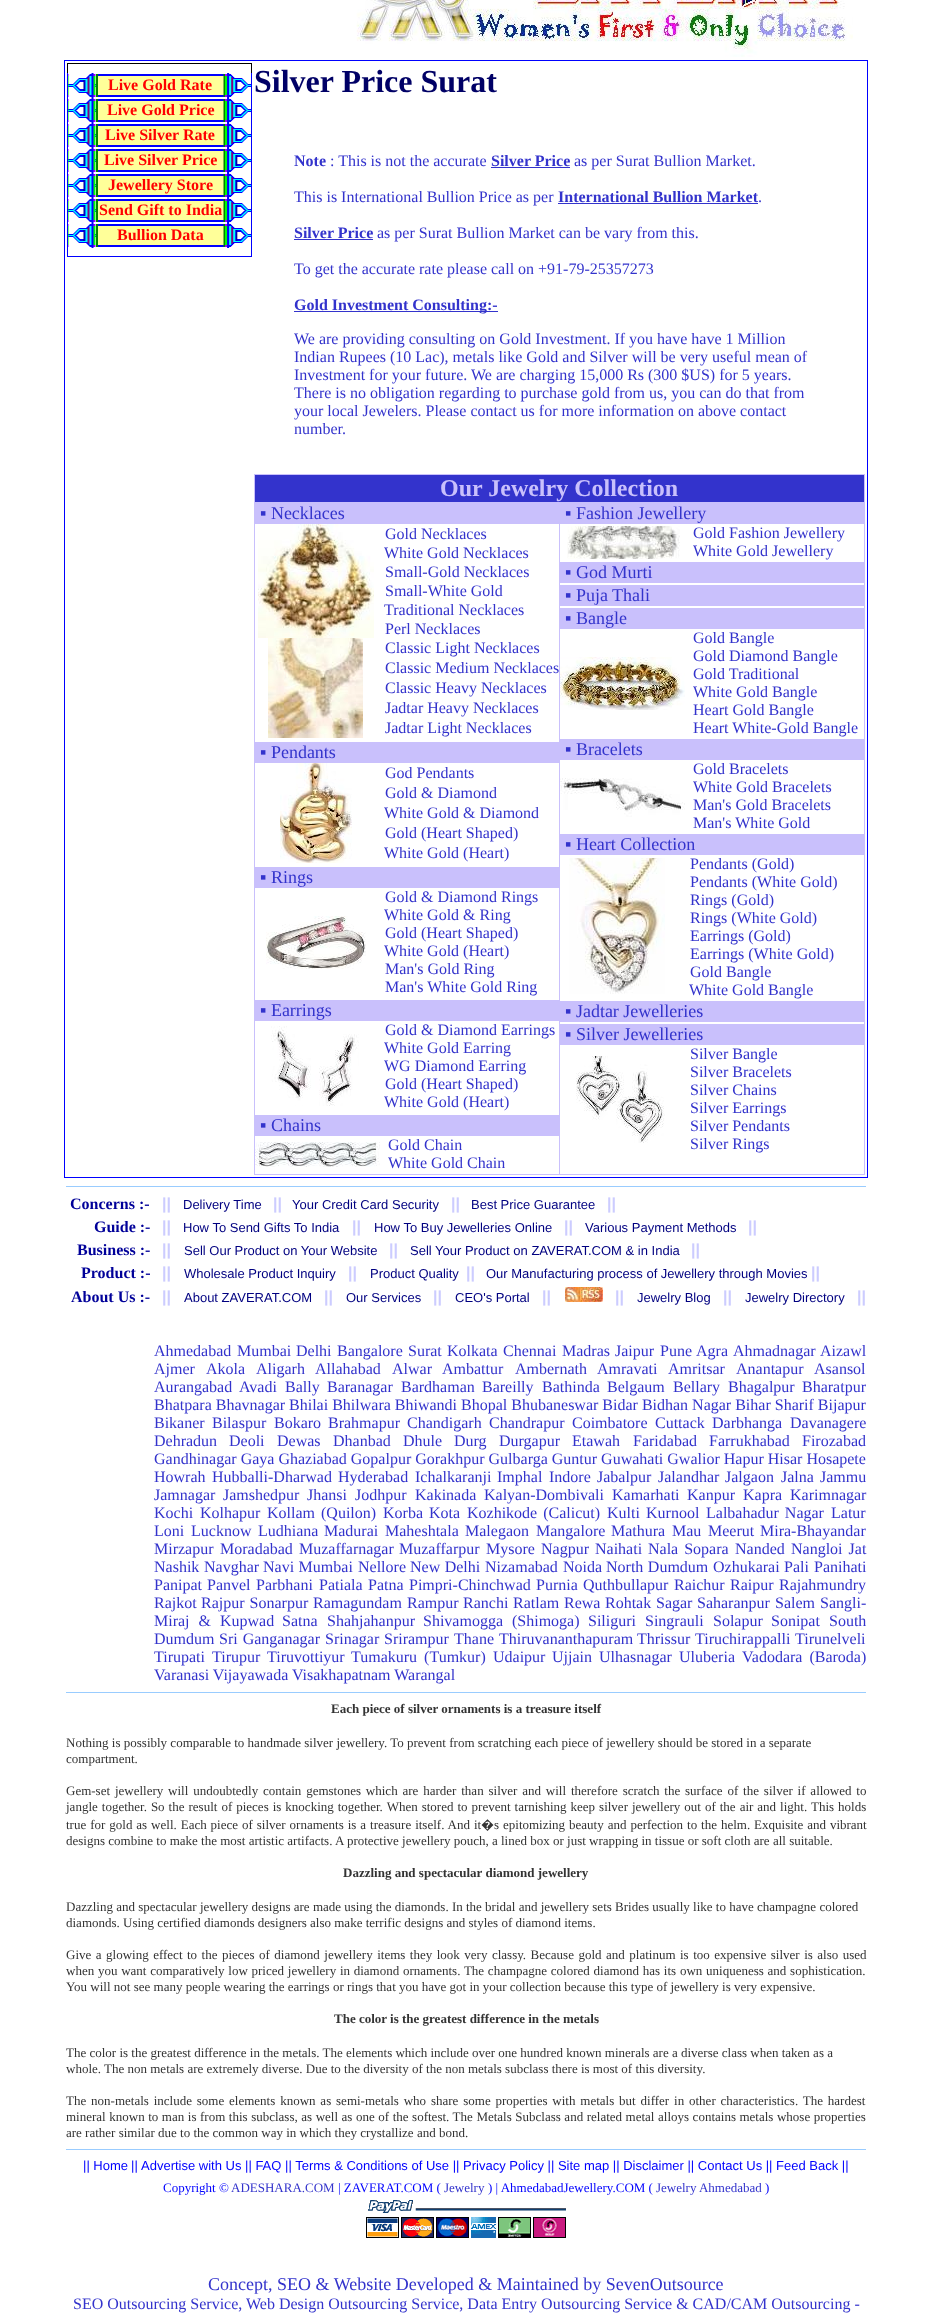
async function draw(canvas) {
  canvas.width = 932;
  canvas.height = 2320;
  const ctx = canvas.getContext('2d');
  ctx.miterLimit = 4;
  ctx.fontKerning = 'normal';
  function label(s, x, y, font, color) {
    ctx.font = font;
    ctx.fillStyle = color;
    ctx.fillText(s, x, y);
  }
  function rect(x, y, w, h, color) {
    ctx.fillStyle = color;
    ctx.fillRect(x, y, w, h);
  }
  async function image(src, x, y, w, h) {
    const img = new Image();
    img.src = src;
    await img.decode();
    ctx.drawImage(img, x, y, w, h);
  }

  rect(0, 0, 932, 2320, '#fff');
  await image('assets/img1.png', 356, 0, 497, 57);
  rect(64, 60, 804, 1, '#00f');
  rect(867, 60, 1, 1118, '#00f');
  rect(64, 1177, 804, 1, '#00f');
  rect(64, 60, 1, 1118, '#00f');
  rect(67, 63, 185, 1, '#000');
  rect(251, 72, 1, 185, '#00f');
  rect(251, 63, 1, 10, '#000');
  rect(67, 256, 185, 1, '#00f');
  rect(67, 72, 1, 185, '#00f');
  rect(67, 63, 1, 10, '#000');
  await image('assets/img2.png', 68, 73, 28, 25);
  await image('assets/img3.png', 96, 74, 129, 23);
  label('Live Gold Rate', 108, 90, 'bold 16px Liberation Serif', '#f00');
  await image('assets/img4.png', 225, 73, 26, 25);
  await image('assets/img2.png', 68, 98, 28, 25);
  await image('assets/img3.png', 96, 99, 129, 23);
  label('Live Gold Price', 107, 115, 'bold 16px Liberation Serif', '#f00');
  await image('assets/img4.png', 225, 98, 26, 25);
  await image('assets/img2.png', 68, 123, 28, 25);
  await image('assets/img3.png', 96, 124, 129, 23);
  label('Live Silver Rate', 105, 140, 'bold 16px Liberation Serif', '#f00');
  await image('assets/img4.png', 225, 123, 26, 25);
  await image('assets/img2.png', 68, 148, 28, 25);
  await image('assets/img3.png', 96, 149, 129, 23);
  label('Live Silver Price', 104, 165, 'bold 16px Liberation Serif', '#f00');
  await image('assets/img4.png', 225, 148, 26, 25);
  await image('assets/img2.png', 68, 173, 28, 25);
  await image('assets/img3.png', 96, 174, 129, 23);
  label('Jewellery Store', 108, 190, 'bold 16px Liberation Serif', '#f00');
  await image('assets/img4.png', 225, 173, 26, 25);
  await image('assets/img2.png', 68, 198, 28, 25);
  await image('assets/img3.png', 96, 199, 129, 23);
  label('Send Gift to India', 99, 215, 'bold 16px Liberation Serif', '#f00');
  await image('assets/img4.png', 225, 198, 26, 25);
  await image('assets/img2.png', 68, 223, 28, 25);
  await image('assets/img3.png', 96, 224, 129, 23);
  label('Bullion Data', 117, 240, 'bold 16px Liberation Serif', '#f00');
  await image('assets/img4.png', 225, 223, 26, 25);
  label('Silver Price Surat', 254, 92, 'bold 32px Liberation Serif', '#006');
  label('Note', 294, 166, 'bold 16px Liberation Serif', '#33c');
  label(': This is not the accurate', 330, 166, '16px Liberation Serif', '#33c');
  label('Silver Price', 491, 166, 'bold 16px Liberation Serif', '#33c');
  rect(491, 167, 79, 1, '#33c');
  label('as per Surat Bullion Market.', 574, 166, '16px Liberation Serif', '#33c');
  label('This is International Bullion Price as per', 294, 202, '16px Liberation Serif', '#33c');
  label('International Bullion Market', 558, 202, 'bold 16px Liberation Serif', '#33c');
  label('.', 758, 202, '16px Liberation Serif', '#33c');
  rect(558, 203, 200, 1, '#33c');
  label('Silver Price', 294, 238, 'bold 16px Liberation Serif', '#33c');
  rect(294, 239, 79, 1, '#33c');
  label('as per Surat Bullion Market can be vary from this.', 377, 238, '16px Liberation Serif', '#33c');
  label('To get the accurate rate please call on +91-79-25357273', 294, 274, '16px Liberation Serif', '#33c');
  rect(294, 311, 204, 1, '#33c');
  label('Gold Investment Consulting:-', 294, 310, 'bold 16px Liberation Serif', '#33c');
  label('We are providing consulting on Gold Investment. If you have have 1 Million', 294, 344, '16px Liberation Serif', '#33c');
  label('Indian Rupees (10 Lac), metals like Gold and Silver will be very useful mean of', 294, 362, '16px Liberation Serif', '#33c');
  label('Investment for your future. We are charging 15,000 Rs (300 $US) for 5 years.', 294, 380, '16px Liberation Serif', '#33c');
  label('There is no obligation regarding to purchase gold from us, you can do that from', 294, 398, '16px Liberation Serif', '#33c');
  label('your local Jewelers. Please contact us for more information on above contact', 294, 416, '16px Liberation Serif', '#33c');
  label('number.', 294, 434, '16px Liberation Serif', '#33c');
  rect(254, 474, 611, 1, '#c9c0fc');
  rect(864, 474, 1, 701, '#c9c0fc');
  rect(254, 1174, 611, 1, '#c9c0fc');
  rect(254, 474, 1, 701, '#c9c0fc');
  rect(255, 475, 609, 27, '#33c');
  label('Our Jewelry Collection', 440, 496, 'bold 24px Liberation Serif', '#c9c0fc');
  rect(559, 502, 306, 1, '#c9c0fc');
  rect(559, 502, 1, 673, '#c9c0fc');
  rect(254, 502, 306, 1, '#c9c0fc');
  rect(255, 503, 304, 21, '#c9c0fc');
  label('▪ Necklaces', 260, 519, '18px Liberation Serif', '#33c');
  await image('assets/img5.png', 258, 524, 116, 114);
  label('Gold Necklaces', 385, 539, '16px Liberation Serif', '#33c');
  label('White Gold Necklaces', 384, 558, '16px Liberation Serif', '#33c');
  label('Small-Gold Necklaces', 385, 577, '16px Liberation Serif', '#33c');
  label('Small-White Gold', 385, 596, '16px Liberation Serif', '#33c');
  label('Traditional Necklaces', 384, 615, '16px Liberation Serif', '#33c');
  label('Perl Necklaces', 385, 634, '16px Liberation Serif', '#33c');
  await image('assets/img6.png', 268, 638, 95, 100);
  label('Classic Light Necklaces', 385, 653, '16px Liberation Serif', '#33c');
  label('Classic Medium Necklaces', 385, 673, '16px Liberation Serif', '#33c');
  label('Classic Heavy Necklaces', 385, 693, '16px Liberation Serif', '#33c');
  label('Jadtar Heavy Necklaces', 385, 713, '16px Liberation Serif', '#33c');
  label('Jadtar Light Necklaces', 385, 733, '16px Liberation Serif', '#33c');
  rect(255, 742, 304, 21, '#c9c0fc');
  label('▪ Pendants', 260, 758, '18px Liberation Serif', '#33c');
  await image('assets/img7.png', 280, 763, 72, 100);
  label('God Pendants', 385, 778, '16px Liberation Serif', '#33c');
  label('Gold & Diamond', 385, 798, '16px Liberation Serif', '#33c');
  label('White Gold & Diamond', 384, 818, '16px Liberation Serif', '#33c');
  label('Gold (Heart Shaped)', 385, 838, '16px Liberation Serif', '#33c');
  label('White Gold (Heart)', 384, 858, '16px Liberation Serif', '#33c');
  rect(255, 867, 304, 21, '#c9c0fc');
  label('▪ Rings', 260, 883, '18px Liberation Serif', '#33c');
  label('Gold & Diamond Rings', 385, 902, '16px Liberation Serif', '#33c');
  await image('assets/img8.png', 266, 916, 100, 53);
  label('White Gold & Ring', 384, 920, '16px Liberation Serif', '#33c');
  label('Gold (Heart Shaped)', 385, 938, '16px Liberation Serif', '#33c');
  label('White Gold (Heart)', 384, 956, '16px Liberation Serif', '#33c');
  label('Man\'s Gold Ring', 385, 974, '16px Liberation Serif', '#33c');
  label('Man\'s White Gold Ring', 385, 992, '16px Liberation Serif', '#33c');
  rect(255, 1000, 304, 21, '#c9c0fc');
  label('▪ Earrings', 260, 1016, '18px Liberation Serif', '#33c');
  await image('assets/img9.png', 271, 1026, 88, 80);
  label('Gold & Diamond Earrings', 385, 1035, '16px Liberation Serif', '#33c');
  label('White Gold Earring', 384, 1053, '16px Liberation Serif', '#33c');
  label('WG Diamond Earring', 384, 1071, '16px Liberation Serif', '#33c');
  label('Gold (Heart Shaped)', 385, 1089, '16px Liberation Serif', '#33c');
  label('White Gold (Heart)', 384, 1107, '16px Liberation Serif', '#33c');
  rect(255, 1115, 304, 21, '#c9c0fc');
  label('▪ Chains', 260, 1131, '18px Liberation Serif', '#33c');
  await image('assets/img10.png', 255, 1142, 125, 25);
  label('Gold Chain', 388, 1150, '16px Liberation Serif', '#33c');
  label('White Gold Chain', 388, 1168, '16px Liberation Serif', '#33c');
  rect(560, 503, 304, 21, '#c9c0fc');
  label('▪ Fashion Jewellery', 565, 519, '18px Liberation Serif', '#33c');
  await image('assets/img11.png', 567, 526, 113, 33);
  label('Gold Fashion Jewellery', 693, 538, '16px Liberation Serif', '#33c');
  label('White Gold Jewellery', 693, 556, '16px Liberation Serif', '#33c');
  rect(560, 562, 304, 21, '#c9c0fc');
  label('▪ God Murti', 565, 578, '18px Liberation Serif', '#33c');
  rect(560, 585, 304, 21, '#c9c0fc');
  label('▪ Puja Thali', 565, 601, '18px Liberation Serif', '#33c');
  rect(560, 608, 304, 21, '#c9c0fc');
  label('▪ Bangle', 565, 624, '18px Liberation Serif', '#33c');
  label('Gold Bangle', 693, 643, '16px Liberation Serif', '#33c');
  await image('assets/img12.png', 560, 657, 125, 53);
  label('Gold Diamond Bangle', 693, 661, '16px Liberation Serif', '#33c');
  label('Gold Traditional', 693, 679, '16px Liberation Serif', '#33c');
  label('White Gold Bangle', 693, 697, '16px Liberation Serif', '#33c');
  label('Heart Gold Bangle', 693, 715, '16px Liberation Serif', '#33c');
  label('Heart White-Gold Bangle', 693, 733, '16px Liberation Serif', '#33c');
  rect(560, 739, 304, 21, '#c9c0fc');
  label('▪ Bracelets', 565, 755, '18px Liberation Serif', '#33c');
  label('Gold Bracelets', 693, 774, '16px Liberation Serif', '#33c');
  await image('assets/img13.png', 560, 778, 125, 39);
  label('White Gold Bracelets', 693, 792, '16px Liberation Serif', '#33c');
  label('Man\'s Gold Bracelets', 693, 810, '16px Liberation Serif', '#33c');
  label('Man\'s White Gold', 693, 828, '16px Liberation Serif', '#33c');
  rect(560, 834, 304, 21, '#c9c0fc');
  label('▪ Heart Collection', 565, 850, '18px Liberation Serif', '#33c');
  await image('assets/img14.png', 569, 858, 96, 136);
  label('Pendants (Gold)', 690, 869, '16px Liberation Serif', '#33c');
  label('Pendants (White Gold)', 690, 887, '16px Liberation Serif', '#33c');
  label('Rings (Gold)', 690, 905, '16px Liberation Serif', '#33c');
  label('Rings (White Gold)', 690, 923, '16px Liberation Serif', '#33c');
  label('Earrings (Gold)', 690, 941, '16px Liberation Serif', '#33c');
  label('Earrings (White Gold)', 690, 959, '16px Liberation Serif', '#33c');
  label('Gold Bangle', 690, 977, '16px Liberation Serif', '#33c');
  label('White Gold Bangle', 689, 995, '16px Liberation Serif', '#33c');
  rect(560, 1001, 304, 21, '#c9c0fc');
  label('▪ Jadtar Jewelleries', 565, 1017, '18px Liberation Serif', '#33c');
  rect(560, 1024, 304, 21, '#c9c0fc');
  label('▪ Silver Jewelleries', 565, 1040, '18px Liberation Serif', '#33c');
  await image('assets/img15.png', 576, 1056, 89, 87);
  label('Silver Bangle', 690, 1059, '16px Liberation Serif', '#33c');
  label('Silver Bracelets', 690, 1077, '16px Liberation Serif', '#33c');
  label('Silver Chains', 690, 1095, '16px Liberation Serif', '#33c');
  label('Silver Earrings', 690, 1113, '16px Liberation Serif', '#33c');
  label('Silver Pendants', 690, 1131, '16px Liberation Serif', '#33c');
  label('Silver Rings', 690, 1149, '16px Liberation Serif', '#33c');
  rect(66, 1186, 800, 1, '#9cf');
  label('Concerns :-', 70, 1209, 'bold 16px Liberation Serif', '#009');
  label('||', 162, 1209, 'bold 16px Liberation Sans', '#ccf');
  label('Delivery Time', 183, 1209, '13px Liberation Sans', '#000080');
  label('||', 273, 1209, 'bold 16px Liberation Sans', '#ccf');
  label('Your Credit Card Security', 292, 1209, '13px Liberation Sans', '#000080');
  label('||', 451, 1209, 'bold 16px Liberation Sans', '#ccf');
  label('Best Price Guarantee', 471, 1209, '13px Liberation Sans', '#000080');
  label('||', 607, 1209, 'bold 16px Liberation Sans', '#ccf');
  label('Guide :-', 94, 1232, 'bold 16px Liberation Serif', '#009');
  label('||', 162, 1232, 'bold 16px Liberation Sans', '#ccf');
  label('How To Send Gifts To India', 183, 1232, '13px Liberation Sans', '#000080');
  label('||', 352, 1232, 'bold 16px Liberation Sans', '#ccf');
  label('How To Buy Jewelleries Online', 374, 1232, '13px Liberation Sans', '#000080');
  label('||', 564, 1232, 'bold 16px Liberation Sans', '#ccf');
  label('Various Payment Methods', 585, 1232, '13px Liberation Sans', '#000080');
  label('||', 748, 1232, 'bold 16px Liberation Sans', '#ccf');
  label('Business :-', 77, 1255, 'bold 16px Liberation Serif', '#009');
  label('||', 162, 1255, 'bold 16px Liberation Sans', '#ccf');
  label('Sell Our Product on Your Website', 184, 1255, '13px Liberation Sans', '#000080');
  label('||', 389, 1255, 'bold 16px Liberation Sans', '#ccf');
  label('Sell Your Product on ZAVERAT.COM & in India', 410, 1255, '13px Liberation Sans', '#000080');
  label('||', 691, 1255, 'bold 16px Liberation Sans', '#ccf');
  label('Product :-', 81, 1278, 'bold 16px Liberation Serif', '#009');
  label('||', 162, 1278, 'bold 16px Liberation Sans', '#ccf');
  label('Wholesale Product Inquiry', 184, 1278, '13px Liberation Sans', '#000080');
  label('||', 348, 1278, 'bold 16px Liberation Sans', '#ccf');
  label('Product Quality', 370, 1278, '13px Liberation Sans', '#000080');
  label('||', 466, 1278, 'bold 16px Liberation Sans', '#ccf');
  label('Our Manufacturing process of Jewellery through Movies', 486, 1278, '13px Liberation Sans', '#000080');
  label('||', 811, 1278, 'bold 16px Liberation Sans', '#ccf');
  label('About Us :-', 71, 1302, 'bold 16px Liberation Serif', '#009');
  label('||', 162, 1302, 'bold 16px Liberation Sans', '#ccf');
  label('About ZAVERAT.COM', 184, 1302, '13px Liberation Sans', '#000080');
  label('||', 324, 1302, 'bold 16px Liberation Sans', '#ccf');
  label('Our Services', 346, 1302, '13px Liberation Sans', '#000080');
  label('||', 433, 1302, 'bold 16px Liberation Sans', '#ccf');
  label('CEO\'s Portal', 455, 1302, '13px Liberation Sans', '#000080');
  label('||', 542, 1302, 'bold 16px Liberation Sans', '#ccf');
  await image('assets/img16.png', 565, 1287, 38, 15);
  label('||', 615, 1302, 'bold 16px Liberation Sans', '#ccf');
  label('Jewelry Blog', 637, 1302, '13px Liberation Sans', '#000080');
  label('||', 723, 1302, 'bold 16px Liberation Sans', '#ccf');
  label('Jewelry Directory', 745, 1302, '13px Liberation Sans', '#000080');
  label('||', 857, 1302, 'bold 16px Liberation Sans', '#ccf');
  label('Ahmedabad', 154, 1356, '16px Liberation Serif', '#33c');
  label('Mumbai', 237, 1356, '16px Liberation Serif', '#33c');
  label('Delhi', 296, 1356, '16px Liberation Serif', '#33c');
  label('Bangalore', 337, 1356, '16px Liberation Serif', '#33c');
  label('Surat', 408, 1356, '16px Liberation Serif', '#33c');
  label('Kolkata', 447, 1356, '16px Liberation Serif', '#33c');
  label('Chennai', 503, 1356, '16px Liberation Serif', '#33c');
  label('Madras', 562, 1356, '16px Liberation Serif', '#33c');
  label('Jaipur', 615, 1356, '16px Liberation Serif', '#33c');
  label('Pune', 660, 1356, '16px Liberation Serif', '#33c');
  label('Agra', 696, 1356, '16px Liberation Serif', '#33c');
  label('Ahmadnagar', 733, 1356, '16px Liberation Serif', '#33c');
  label('Aizawl', 820, 1356, '16px Liberation Serif', '#33c');
  label('Ajmer', 154, 1374, '16px Liberation Serif', '#33c');
  label('Akola', 206, 1374, '16px Liberation Serif', '#33c');
  label('Aligarh', 256, 1374, '16px Liberation Serif', '#33c');
  label('Allahabad', 315, 1374, '16px Liberation Serif', '#33c');
  label('Alwar', 392, 1374, '16px Liberation Serif', '#33c');
  label('Ambattur', 442, 1374, '16px Liberation Serif', '#33c');
  label('Ambernath', 515, 1374, '16px Liberation Serif', '#33c');
  label('Amravati', 597, 1374, '16px Liberation Serif', '#33c');
  label('Amritsar', 668, 1374, '16px Liberation Serif', '#33c');
  label('Anantapur', 736, 1374, '16px Liberation Serif', '#33c');
  label('Asansol', 814, 1374, '16px Liberation Serif', '#33c');
  label('Aurangabad', 154, 1392, '16px Liberation Serif', '#33c');
  label('Avadi', 239, 1392, '16px Liberation Serif', '#33c');
  label('Bally', 285, 1392, '16px Liberation Serif', '#33c');
  label('Baranagar', 327, 1392, '16px Liberation Serif', '#33c');
  label('Bardhaman', 401, 1392, '16px Liberation Serif', '#33c');
  label('Bareilly', 482, 1392, '16px Liberation Serif', '#33c');
  label('Bathinda', 542, 1392, '16px Liberation Serif', '#33c');
  label('Belgaum', 607, 1392, '16px Liberation Serif', '#33c');
  label('Bellary', 673, 1392, '16px Liberation Serif', '#33c');
  label('Bhagalpur', 728, 1392, '16px Liberation Serif', '#33c');
  label('Bharatpur', 802, 1392, '16px Liberation Serif', '#33c');
  label('Bhatpara Bhavnagar Bhilai Bhilwara Bhiwandi Bhopal Bhubaneswar Bidar Bidhan Nagar Bihar Sharif Bijapur', 154, 1410, '16px Liberation Serif', '#33c');
  label('Bikaner', 154, 1428, '16px Liberation Serif', '#33c');
  label('Bilaspur', 212, 1428, '16px Liberation Serif', '#33c');
  label('Bokaro', 274, 1428, '16px Liberation Serif', '#33c');
  label('Brahmapur', 328, 1428, '16px Liberation Serif', '#33c');
  label('Chandigarh', 407, 1428, '16px Liberation Serif', '#33c');
  label('Chandrapur', 489, 1428, '16px Liberation Serif', '#33c');
  label('Coimbatore', 572, 1428, '16px Liberation Serif', '#33c');
  label('Cuttack', 655, 1428, '16px Liberation Serif', '#33c');
  label('Darbhanga', 712, 1428, '16px Liberation Serif', '#33c');
  label('Davanagere', 790, 1428, '16px Liberation Serif', '#33c');
  label('Dehradun', 154, 1446, '16px Liberation Serif', '#33c');
  label('Deoli', 229, 1446, '16px Liberation Serif', '#33c');
  label('Dewas', 277, 1446, '16px Liberation Serif', '#33c');
  label('Dhanbad', 333, 1446, '16px Liberation Serif', '#33c');
  label('Dhule', 403, 1446, '16px Liberation Serif', '#33c');
  label('Durg', 454, 1446, '16px Liberation Serif', '#33c');
  label('Durgapur', 499, 1446, '16px Liberation Serif', '#33c');
  label('Etawah', 572, 1446, '16px Liberation Serif', '#33c');
  label('Faridabad', 633, 1446, '16px Liberation Serif', '#33c');
  label('Farrukhabad', 709, 1446, '16px Liberation Serif', '#33c');
  label('Firozabad', 802, 1446, '16px Liberation Serif', '#33c');
  label('Gandhinagar Gaya Ghaziabad Gopalpur Gorakhpur Gulbarga Guntur Guwahati Gwalior Hapur Hisar Hosapete', 154, 1464, '16px Liberation Serif', '#33c');
  label('Howrah', 154, 1482, '16px Liberation Serif', '#33c');
  label('Hubballi-Dharwad', 212, 1482, '16px Liberation Serif', '#33c');
  label('Hyderabad', 338, 1482, '16px Liberation Serif', '#33c');
  label('Ichalkaranji', 415, 1482, '16px Liberation Serif', '#33c');
  label('Imphal', 497, 1482, '16px Liberation Serif', '#33c');
  label('Indore', 549, 1482, '16px Liberation Serif', '#33c');
  label('Jabalpur', 597, 1482, '16px Liberation Serif', '#33c');
  label('Jalandhar', 658, 1482, '16px Liberation Serif', '#33c');
  label('Jalgaon', 725, 1482, '16px Liberation Serif', '#33c');
  label('Jalna', 781, 1482, '16px Liberation Serif', '#33c');
  label('Jammu', 820, 1482, '16px Liberation Serif', '#33c');
  label('Jamnagar', 154, 1500, '16px Liberation Serif', '#33c');
  label('Jamshedpur', 223, 1500, '16px Liberation Serif', '#33c');
  label('Jhansi', 307, 1500, '16px Liberation Serif', '#33c');
  label('Jodhpur', 355, 1500, '16px Liberation Serif', '#33c');
  label('Kakinada', 415, 1500, '16px Liberation Serif', '#33c');
  label('Kalyan-Dombivali', 484, 1500, '16px Liberation Serif', '#33c');
  label('Kamarhati', 612, 1500, '16px Liberation Serif', '#33c');
  label('Kanpur', 687, 1500, '16px Liberation Serif', '#33c');
  label('Kapra', 743, 1500, '16px Liberation Serif', '#33c');
  label('Karimnagar', 790, 1500, '16px Liberation Serif', '#33c');
  label('Kochi', 154, 1518, '16px Liberation Serif', '#33c');
  label('Kolhapur', 200, 1518, '16px Liberation Serif', '#33c');
  ctx.wordSpacing = '2px';
  label('Kollam (Quilon)', 267, 1518, '16px Liberation Serif', '#33c');
  ctx.wordSpacing = '0px';
  label('Korba', 383, 1518, '16px Liberation Serif', '#33c');
  label('Kota', 429, 1518, '16px Liberation Serif', '#33c');
  ctx.wordSpacing = '2px';
  label('Kozhikode (Calicut)', 467, 1518, '16px Liberation Serif', '#33c');
  ctx.wordSpacing = '0px';
  label('Kulti', 607, 1518, '16px Liberation Serif', '#33c');
  label('Kurnool', 646, 1518, '16px Liberation Serif', '#33c');
  ctx.wordSpacing = '2px';
  label('Lalbahadur Nagar', 706, 1518, '16px Liberation Serif', '#33c');
  ctx.wordSpacing = '0px';
  label('Latur', 831, 1518, '16px Liberation Serif', '#33c');
  label('Loni', 154, 1536, '16px Liberation Serif', '#33c');
  label('Lucknow', 191, 1536, '16px Liberation Serif', '#33c');
  label('Ludhiana', 258, 1536, '16px Liberation Serif', '#33c');
  label('Madurai', 324, 1536, '16px Liberation Serif', '#33c');
  label('Maheshtala', 385, 1536, '16px Liberation Serif', '#33c');
  label('Malegaon', 465, 1536, '16px Liberation Serif', '#33c');
  label('Mangalore', 536, 1536, '16px Liberation Serif', '#33c');
  label('Mathura', 611, 1536, '16px Liberation Serif', '#33c');
  label('Mau', 672, 1536, '16px Liberation Serif', '#33c');
  label('Meerut', 708, 1536, '16px Liberation Serif', '#33c');
  label('Mira-Bhayandar', 760, 1536, '16px Liberation Serif', '#33c');
  label('Mirzapur', 154, 1554, '16px Liberation Serif', '#33c');
  label('Moradabad', 220, 1554, '16px Liberation Serif', '#33c');
  label('Muzaffarnagar', 299, 1554, '16px Liberation Serif', '#33c');
  label('Muzaffarpur', 399, 1554, '16px Liberation Serif', '#33c');
  label('Mysore', 486, 1554, '16px Liberation Serif', '#33c');
  label('Nagpur', 541, 1554, '16px Liberation Serif', '#33c');
  label('Naihati', 595, 1554, '16px Liberation Serif', '#33c');
  ctx.wordSpacing = '2px';
  label('Nala Sopara', 648, 1554, '16px Liberation Serif', '#33c');
  ctx.wordSpacing = '0px';
  label('Nanded', 735, 1554, '16px Liberation Serif', '#33c');
  ctx.wordSpacing = '2px';
  label('Nangloi Jat', 791, 1554, '16px Liberation Serif', '#33c');
  ctx.wordSpacing = '0px';
  label('Nashik', 154, 1572, '16px Liberation Serif', '#33c');
  label('Navghar', 204, 1572, '16px Liberation Serif', '#33c');
  ctx.wordSpacing = '0.5px';
  label('Navi Mumbai', 263, 1572, '16px Liberation Serif', '#33c');
  ctx.wordSpacing = '0px';
  label('Nellore', 358, 1572, '16px Liberation Serif', '#33c');
  ctx.wordSpacing = '0.5px';
  label('New Delhi', 410, 1572, '16px Liberation Serif', '#33c');
  ctx.wordSpacing = '0px';
  label('Nizamabad', 485, 1572, '16px Liberation Serif', '#33c');
  label('Noida', 563, 1572, '16px Liberation Serif', '#33c');
  ctx.wordSpacing = '0.5px';
  label('North Dumdum', 606, 1572, '16px Liberation Serif', '#33c');
  ctx.wordSpacing = '0px';
  label('Ozhukarai', 713, 1572, '16px Liberation Serif', '#33c');
  label('Pali', 784, 1572, '16px Liberation Serif', '#33c');
  label('Panihati', 814, 1572, '16px Liberation Serif', '#33c');
  label('Panipat', 154, 1590, '16px Liberation Serif', '#33c');
  label('Panvel', 207, 1590, '16px Liberation Serif', '#33c');
  label('Parbhani', 256, 1590, '16px Liberation Serif', '#33c');
  label('Patiala', 319, 1590, '16px Liberation Serif', '#33c');
  label('Patna', 368, 1590, '16px Liberation Serif', '#33c');
  label('Pimpri-Chinchwad', 409, 1590, '16px Liberation Serif', '#33c');
  label('Purnia', 536, 1590, '16px Liberation Serif', '#33c');
  label('Quthbullapur', 583, 1590, '16px Liberation Serif', '#33c');
  label('Raichur', 674, 1590, '16px Liberation Serif', '#33c');
  label('Raipur', 730, 1590, '16px Liberation Serif', '#33c');
  label('Rajahmundry', 779, 1590, '16px Liberation Serif', '#33c');
  label('Rajkot', 154, 1608, '16px Liberation Serif', '#33c');
  ctx.wordSpacing = '1px';
  label('Rajpur Sonarpur', 201, 1608, '16px Liberation Serif', '#33c');
  ctx.wordSpacing = '0px';
  label('Ramagundam', 313, 1608, '16px Liberation Serif', '#33c');
  label('Rampur', 407, 1608, '16px Liberation Serif', '#33c');
  label('Ranchi', 463, 1608, '16px Liberation Serif', '#33c');
  label('Ratlam', 513, 1608, '16px Liberation Serif', '#33c');
  label('Rewa', 564, 1608, '16px Liberation Serif', '#33c');
  label('Rohtak', 605, 1608, '16px Liberation Serif', '#33c');
  label('Sagar', 656, 1608, '16px Liberation Serif', '#33c');
  label('Saharanpur', 697, 1608, '16px Liberation Serif', '#33c');
  label('Salem', 775, 1608, '16px Liberation Serif', '#33c');
  label('Sangli-', 820, 1608, '16px Liberation Serif', '#33c');
  ctx.wordSpacing = '5px';
  label('Miraj & Kupwad', 154, 1626, '16px Liberation Serif', '#33c');
  ctx.wordSpacing = '0px';
  label('Satna', 282, 1626, '16px Liberation Serif', '#33c');
  label('Shahjahanpur', 327, 1626, '16px Liberation Serif', '#33c');
  ctx.wordSpacing = '5px';
  label('Shivamogga (Shimoga)', 423, 1626, '16px Liberation Serif', '#33c');
  ctx.wordSpacing = '0px';
  label('Siliguri', 588, 1626, '16px Liberation Serif', '#33c');
  label('Singrauli', 645, 1626, '16px Liberation Serif', '#33c');
  label('Solapur', 713, 1626, '16px Liberation Serif', '#33c');
  label('Sonipat', 771, 1626, '16px Liberation Serif', '#33c');
  label('South', 829, 1626, '16px Liberation Serif', '#33c');
  label('Dumdum', 154, 1644, '16px Liberation Serif', '#33c');
  ctx.wordSpacing = '1px';
  label('Sri Ganganagar', 219, 1644, '16px Liberation Serif', '#33c');
  ctx.wordSpacing = '0px';
  label('Srinagar', 325, 1644, '16px Liberation Serif', '#33c');
  label('Srirampur', 384, 1644, '16px Liberation Serif', '#33c');
  label('Thane', 454, 1644, '16px Liberation Serif', '#33c');
  label('Thiruvananthapuram', 499, 1644, '16px Liberation Serif', '#33c');
  label('Thrissur', 637, 1644, '16px Liberation Serif', '#33c');
  label('Tiruchirappalli', 695, 1644, '16px Liberation Serif', '#33c');
  label('Tirunelveli', 795, 1644, '16px Liberation Serif', '#33c');
  label('Tirupati', 154, 1662, '16px Liberation Serif', '#33c');
  label('Tirupur', 212, 1662, '16px Liberation Serif', '#33c');
  label('Tiruvottiyur', 267, 1662, '16px Liberation Serif', '#33c');
  ctx.wordSpacing = '3px';
  label('Tumakuru (Tumkur)', 351, 1662, '16px Liberation Serif', '#33c');
  ctx.wordSpacing = '0px';
  label('Udaipur', 493, 1662, '16px Liberation Serif', '#33c');
  label('Ujjain', 552, 1662, '16px Liberation Serif', '#33c');
  label('Ulhasnagar', 599, 1662, '16px Liberation Serif', '#33c');
  label('Uluberia', 679, 1662, '16px Liberation Serif', '#33c');
  ctx.wordSpacing = '3px';
  label('Vadodara (Baroda)', 742, 1662, '16px Liberation Serif', '#33c');
  ctx.wordSpacing = '0px';
  label('Varanasi Vijayawada Visakhapatnam Warangal', 154, 1680, '16px Liberation Serif', '#33c');
  rect(66, 1692, 800, 1, '#9cf');
  label('Each piece of silver ornaments is a treasure itself', 331, 1713, 'bold 13px Liberation Serif', '#333');
  label('Nothing is possibly comparable to handmade silver jewellery. To prevent from scratching each piece of jewellery should be stored in a separate', 66, 1747, '13px Liberation Serif', '#333');
  label('compartment.', 66, 1763, '13px Liberation Serif', '#333');
  ctx.wordSpacing = '1.6px';
  label('Gem-set jewellery will undoubtedly contain gemstones which are harder than silver and will therefore scratch the surface of the silver if allowed to', 66, 1795, '13px Liberation Serif', '#333');
  ctx.wordSpacing = '0.75px';
  label('jangle together. So the result of pieces is knocking together. When stored to prevent tarnishing keep silver jewellery out of the air and light. This holds', 66, 1811, '13px Liberation Serif', '#333');
  ctx.wordSpacing = '0.7px';
  label('true for gold as well. Each piece of silver ornaments is a treasure itself. And it', 66, 1829, '13px Liberation Serif', '#333');
  ctx.wordSpacing = '0px';
  label('�', 481, 1829, '13px Noto Sans', '#333');
  ctx.wordSpacing = '0.7px';
  label('s epitomizing beauty and perfection to the helm. Exquisite and vibrant', 494, 1829, '13px Liberation Serif', '#333');
  ctx.wordSpacing = '0px';
  label('designs combine to make the most artistic artifacts. A protective jewellery pouch, a lined box or just wrapping in tissue or soft cloth are all suitable.', 66, 1845, '13px Liberation Serif', '#333');
  label('Dazzling and spectacular diamond jewellery', 343, 1877, 'bold 13px Liberation Serif', '#333');
  label('Dazzling and spectacular jewellery designs are made using the diamonds. In the bridal and jewellery sets Brides usually like to have champagne colored', 66, 1911, '13px Liberation Serif', '#333');
  label('diamonds. Using certified diamonds designers also make terrific designs and styles of diamond items.', 66, 1927, '13px Liberation Serif', '#333');
  ctx.wordSpacing = '1.25px';
  label('Give a glowing effect to the pieces of diamond jewellery items they look very classy. Because gold and platinum is too expensive silver is also used', 66, 1959, '13px Liberation Serif', '#333');
  ctx.wordSpacing = '0.5px';
  label('when you want comparatively low priced jewellery in diamond ornaments. The champagne colored diamond has its own uniqueness and sophistication.', 66, 1975, '13px Liberation Serif', '#333');
  ctx.wordSpacing = '0px';
  label('You will not see many people wearing the earrings or rings that you have got in your collection because this type of jewellery is very expensive.', 66, 1991, '13px Liberation Serif', '#333');
  label('The color is the greatest difference in the metals', 334, 2023, 'bold 13px Liberation Serif', '#333');
  label('The color is the greatest difference in the metals. The elements which include over one hundred known minerals are a diverse class when taken as a', 66, 2057, '13px Liberation Serif', '#333');
  label('whole. The non metals are extremely diverse. Due to the diversity of the non metals subclass there is most of this diversity.', 66, 2073, '13px Liberation Serif', '#333');
  ctx.wordSpacing = '1.6px';
  label('The non-metals include some elements known as semi-metals who share some properties with metals but differ in other characteristics. The hardest', 66, 2105, '13px Liberation Serif', '#333');
  ctx.wordSpacing = '0.3px';
  label('mineral known to man is from this subclass, as well as one of the softest. The Metals Subclass and related metal alloys contains metals whose properties', 66, 2121, '13px Liberation Serif', '#333');
  ctx.wordSpacing = '0px';
  label('are rather similar due to the common way in which they crystallize and bond.', 66, 2137, '13px Liberation Serif', '#333');
  rect(66, 2149, 800, 1, '#9cf');
  label('|| Home', 83, 2170, '13px Liberation Sans', '#00f');
  label('||', 131, 2170, '13px Liberation Sans', '#00f');
  label('Advertise with Us || FAQ || Terms & Conditions of Use || Privacy Policy || Site map || Disclaimer || Contact Us || Feed Back ||', 141, 2170, '13px Liberation Sans', '#00f');
  label('Copyright ©', 163, 2192, '13px Liberation Serif', '#00f');
  label('ADESHARA.COM', 231, 2192, '13px Liberation Serif', '#33c');
  label('| ZAVERAT.COM (', 338, 2192, '13px Liberation Serif', '#00f');
  label('Jewelry', 444, 2192, '13px Liberation Serif', '#33c');
  label(') | AhmedabadJewellery.COM (', 488, 2192, '13px Liberation Serif', '#00f');
  label('Jewelry Ahmedabad', 656, 2192, '13px Liberation Serif', '#33c');
  label(')', 765, 2192, '13px Liberation Serif', '#00f');
  await image('assets/img17.png', 366, 2200, 200, 38);
  label('Concept, SEO & Website Developed & Maintained by SevenOutsource', 208, 2290, '18px Liberation Serif', '#33c');
  label('SEO Outsourcing Service, Web Design Outsourcing Service, Data Entry Outsourcing Service & CAD/CAM Outsourcing -', 73, 2309, '16px Liberation Serif', '#33c');
}

draw(document.querySelector('canvas'));
